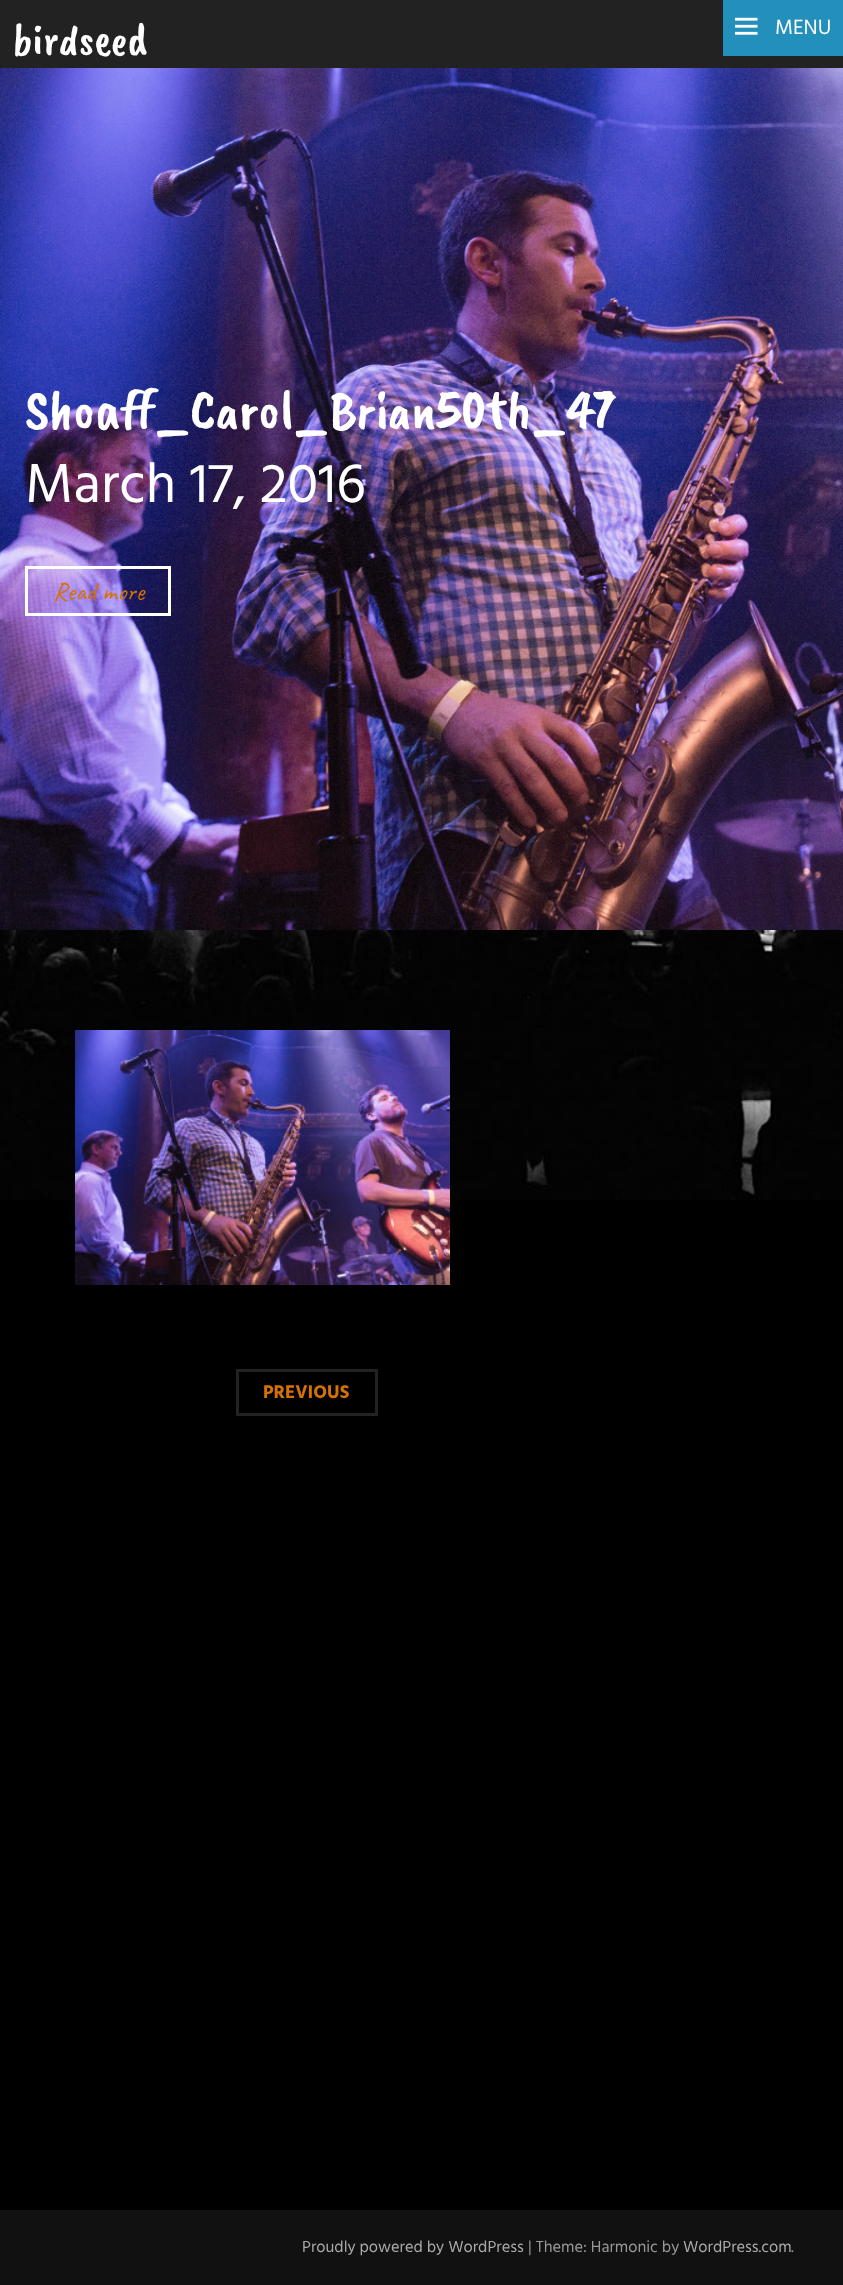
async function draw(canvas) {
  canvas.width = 843;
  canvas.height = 2285;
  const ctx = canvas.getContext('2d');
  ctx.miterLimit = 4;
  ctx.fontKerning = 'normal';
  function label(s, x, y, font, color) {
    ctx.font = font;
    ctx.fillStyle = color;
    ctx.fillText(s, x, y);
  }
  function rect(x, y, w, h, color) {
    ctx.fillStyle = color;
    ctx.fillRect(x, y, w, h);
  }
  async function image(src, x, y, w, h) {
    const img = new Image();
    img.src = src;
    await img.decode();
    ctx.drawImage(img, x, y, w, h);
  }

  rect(0, 0, 843, 2285, '#000');
  await image('assets/img1.png', 0, 930, 843, 270);
  rect(0, 0, 843, 68, '#222');
  label('birdseed', 13, 54, '45px Caveat Brush', '#fff');
  rect(723, 0, 120, 56, '#2390bb');
  await image('assets/img2.png', 735, 17, 23, 18);
  label('MENU', 775, 34, '21px Hind', '#fff');
  await image('assets/img3.png', 0, 68, 843, 862);
  label('Shoaff_Carol_Brian50th_47', 25, 428, '56.25px Caveat Brush', '#fff');
  label('March 17, 2016', 25, 502, '56.25px Hind', '#fff');
  ctx.strokeStyle = '#fff';
  ctx.lineWidth = 3;
  ctx.strokeRect(26.5, 567.5, 143, 47);
  label('Read more', 53, 600, '26px Caveat', '#d67105');
  await image('assets/img4.png', 75, 1030, 375, 255);
  ctx.strokeStyle = '#222';
  ctx.strokeRect(237.5, 1370.5, 139, 44);
  label('PREVIOUS', 263, 1398, 'bold 18.75px Hind', '#d67105');
  rect(0, 2210, 843, 75, '#111');
  label('Proudly powered by WordPress', 302, 2252, '16.4px Hind', '#aaa');
  label('| Theme: Harmonic by', 528, 2252, '16.4px Hind', '#999');
  label('WordPress.com', 683, 2252, '16.4px Hind', '#aaa');
  label('.', 791, 2252, '16.4px Hind', '#999');
}

draw(document.querySelector('canvas'));
